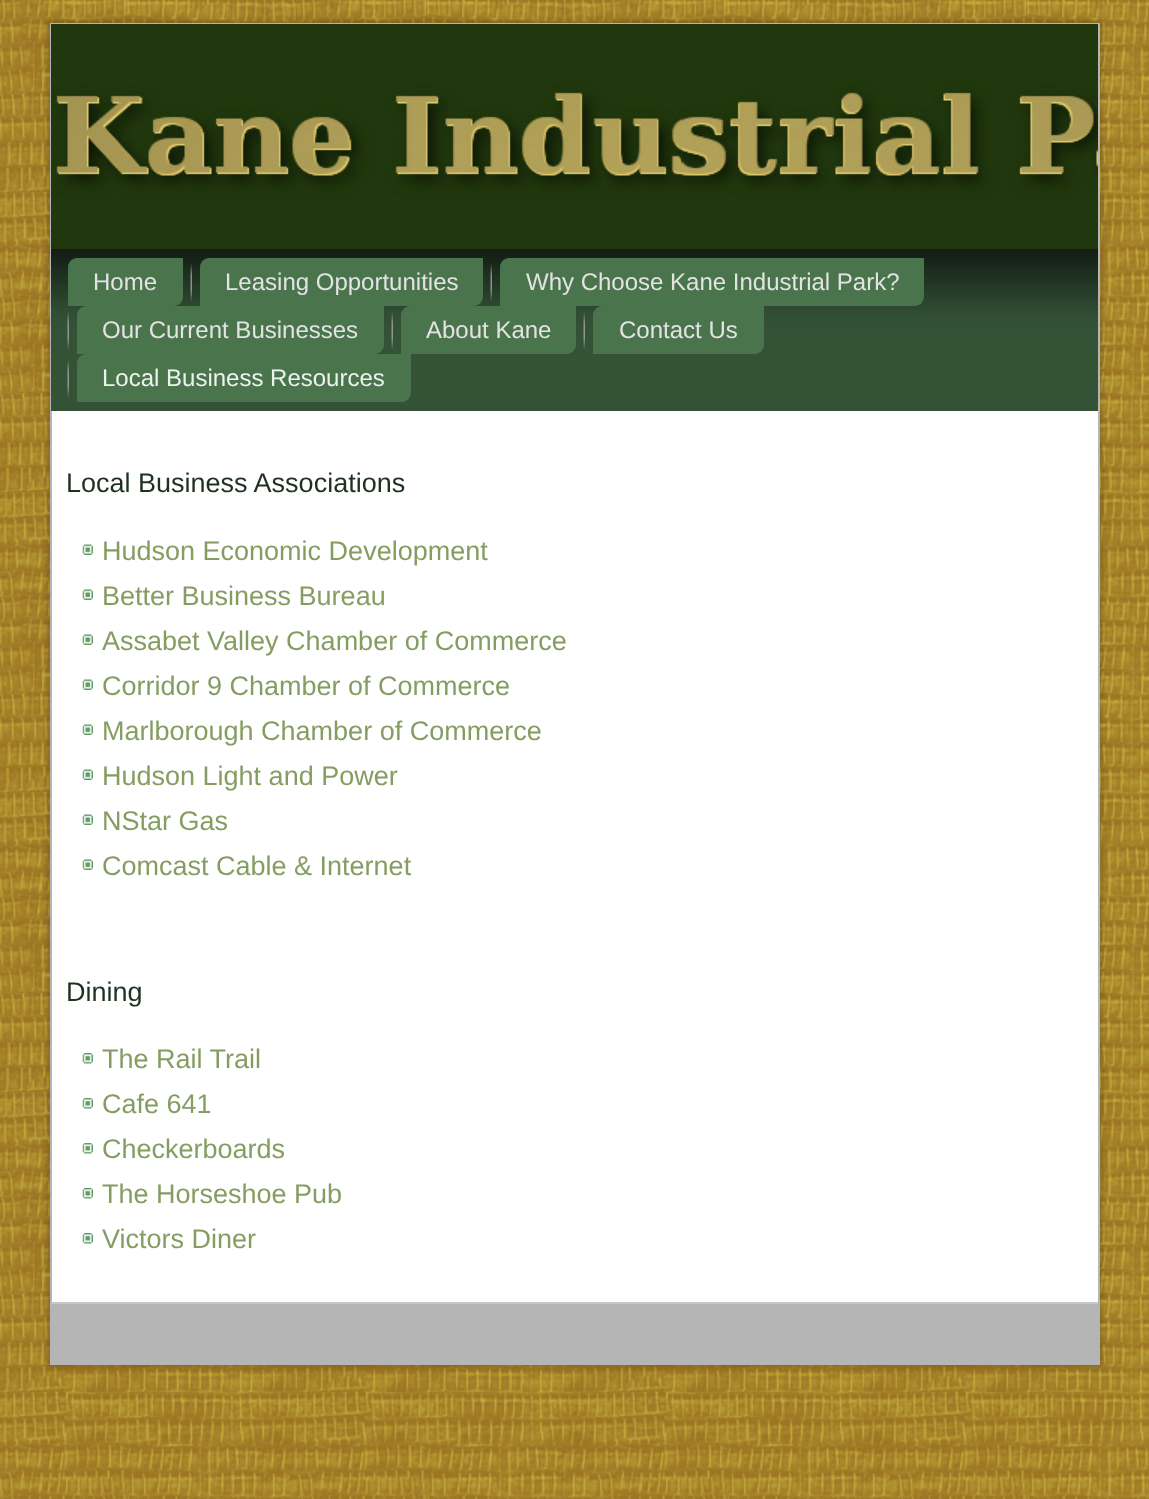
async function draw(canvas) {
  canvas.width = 1149;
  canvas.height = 1499;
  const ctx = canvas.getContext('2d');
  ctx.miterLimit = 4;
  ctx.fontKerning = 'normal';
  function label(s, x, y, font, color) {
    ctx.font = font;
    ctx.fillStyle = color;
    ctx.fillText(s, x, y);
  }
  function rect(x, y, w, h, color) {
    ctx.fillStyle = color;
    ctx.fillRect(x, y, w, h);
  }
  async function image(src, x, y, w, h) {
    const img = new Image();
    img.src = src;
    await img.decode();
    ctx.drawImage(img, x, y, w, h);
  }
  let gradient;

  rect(0, 0, 1149, 1499, '#b09030');
  await image('assets/img1.png', 0, 0, 1149, 1499);
  ctx.fillStyle = '#00000026';
  ctx.filter = 'blur(2px)';
  ctx.beginPath();
  ctx.rect(47, 20, 1056, 1348);
  ctx.fill();
  ctx.filter = 'none';
  rect(52, 411, 1046, 891, '#fff');
  ctx.strokeStyle = '#b5b5b5';
  ctx.lineWidth = 2;
  ctx.strokeRect(51, 24, 1048, 1340);
  await image('assets/img2.png', 51, 24, 1047, 225);
  gradient = ctx.createLinearGradient(575, 249, 575, 411);
  gradient.addColorStop(0, '#121c13');
  gradient.addColorStop(0.4, '#314e34');
  gradient.addColorStop(0.5, '#335236');
  gradient.addColorStop(1, '#335236');
  ctx.fillStyle = gradient;
  ctx.fillRect(51, 249, 1047, 162);
  ctx.fillStyle = '#49744c';
  ctx.beginPath();
  ctx.roundRect(68, 258, 115, 48, [9, 0, 9, 0]);
  ctx.fill();
  label('Home', 93, 290, '24px Liberation Sans', '#e3e3e3');
  await image('assets/img3.png', 190, 264, 2, 38);
  ctx.fillStyle = '#49744c';
  ctx.beginPath();
  ctx.roundRect(200, 258, 283, 48, [9, 0, 9, 0]);
  ctx.fill();
  label('Leasing Opportunities', 225, 290, '24px Liberation Sans', '#e3e3e3');
  await image('assets/img3.png', 490, 264, 2, 38);
  ctx.fillStyle = '#49744c';
  ctx.beginPath();
  ctx.roundRect(500, 258, 424, 48, [9, 0, 9, 0]);
  ctx.fill();
  label('Why Choose Kane Industrial Park?', 526, 290, '24px Liberation Sans', '#e3e3e3');
  await image('assets/img4.png', 67, 312, 2, 38);
  ctx.fillStyle = '#49744c';
  ctx.beginPath();
  ctx.roundRect(77, 306, 307, 48, [9, 0, 9, 0]);
  ctx.fill();
  label('Our Current Businesses', 102, 338, '24px Liberation Sans', '#e3e3e3');
  await image('assets/img4.png', 391, 312, 2, 38);
  ctx.fillStyle = '#49744c';
  ctx.beginPath();
  ctx.roundRect(401, 306, 175, 48, [9, 0, 9, 0]);
  ctx.fill();
  label('About Kane', 426, 338, '24px Liberation Sans', '#e3e3e3');
  await image('assets/img4.png', 583, 312, 2, 38);
  ctx.fillStyle = '#49744c';
  ctx.beginPath();
  ctx.roundRect(593, 306, 171, 48, [9, 0, 9, 0]);
  ctx.fill();
  label('Contact Us', 619, 338, '24px Liberation Sans', '#e3e3e3');
  await image('assets/img5.png', 67, 360, 2, 38);
  ctx.fillStyle = '#49744c';
  ctx.beginPath();
  ctx.roundRect(77, 354, 334, 48, [9, 0, 9, 0]);
  ctx.fill();
  label('Local Business Resources', 102, 386, '24px Liberation Sans', '#ecf3ed');
  label('Local Business Associations', 66, 492, '27px Liberation Sans', '#1f3221');
  await image('assets/img6.png', 82, 544, 11, 11);
  label('Hudson Economic Development', 102, 560, '27px Liberation Sans', '#869d62');
  await image('assets/img6.png', 82, 589, 11, 11);
  label('Better Business Bureau', 102, 605, '27px Liberation Sans', '#869d62');
  await image('assets/img6.png', 82, 634, 11, 11);
  label('Assabet Valley Chamber of Commerce', 102, 650, '27px Liberation Sans', '#869d62');
  await image('assets/img6.png', 82, 679, 11, 11);
  label('Corridor 9 Chamber of Commerce', 102, 695, '27px Liberation Sans', '#869d62');
  await image('assets/img6.png', 82, 724, 11, 11);
  label('Marlborough Chamber of Commerce', 102, 740, '27px Liberation Sans', '#869d62');
  await image('assets/img6.png', 82, 769, 11, 11);
  label('Hudson Light and Power', 102, 785, '27px Liberation Sans', '#869d62');
  await image('assets/img6.png', 82, 814, 11, 11);
  label('NStar Gas', 102, 830, '27px Liberation Sans', '#869d62');
  await image('assets/img6.png', 82, 859, 11, 11);
  label('Comcast Cable & Internet', 102, 875, '27px Liberation Sans', '#869d62');
  label('Dining', 66, 1001, '27px Liberation Sans', '#1f3221');
  await image('assets/img7.png', 82, 1053, 11, 11);
  label('The Rail Trail', 102, 1068, '27px Liberation Sans', '#869d62');
  await image('assets/img7.png', 82, 1098, 11, 11);
  label('Cafe 641', 102, 1113, '27px Liberation Sans', '#869d62');
  await image('assets/img7.png', 82, 1143, 11, 11);
  label('Checkerboards', 102, 1158, '27px Liberation Sans', '#869d62');
  await image('assets/img7.png', 82, 1188, 11, 11);
  label('The Horseshoe Pub', 102, 1203, '27px Liberation Sans', '#869d62');
  await image('assets/img7.png', 82, 1233, 11, 11);
  label('Victors Diner', 102, 1248, '27px Liberation Sans', '#869d62');
  rect(52, 1304, 1046, 59, '#b5b5b5');
  rect(51, 1302, 1047, 2, '#c7c7c7');
}

draw(document.querySelector('canvas'));
